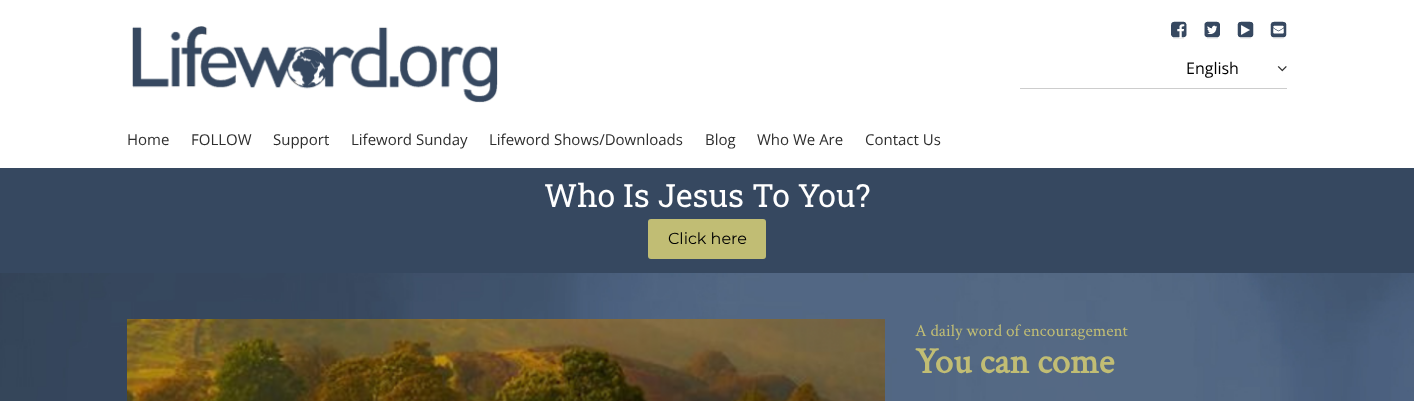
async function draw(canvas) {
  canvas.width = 1414;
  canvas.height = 401;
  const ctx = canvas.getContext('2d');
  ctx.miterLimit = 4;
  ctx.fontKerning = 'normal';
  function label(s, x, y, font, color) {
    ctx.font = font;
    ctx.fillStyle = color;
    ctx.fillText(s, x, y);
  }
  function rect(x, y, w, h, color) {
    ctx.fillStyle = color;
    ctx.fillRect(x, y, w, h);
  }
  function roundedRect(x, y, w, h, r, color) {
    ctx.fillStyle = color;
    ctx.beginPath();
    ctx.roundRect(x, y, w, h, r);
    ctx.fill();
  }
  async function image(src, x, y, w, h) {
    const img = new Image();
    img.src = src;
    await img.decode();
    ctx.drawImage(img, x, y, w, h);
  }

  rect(0, 0, 1414, 401, '#fff');
  await image('assets/img1.png', 1171, 21, 16, 18);
  await image('assets/img2.png', 1204, 21, 16, 18);
  await image('assets/img3.png', 1237, 21, 17, 18);
  await image('assets/img4.png', 1270, 21, 17, 18);
  await image('assets/img5.png', 1277, 66, 10, 6);
  rect(1020, 88, 267, 1, '#cdcdcd');
  label('English', 1186, 74, '16px Open Sans', '#000');
  await image('assets/img6.png', 132, 26, 366, 77);
  label('Home', 127, 145, '15px Open Sans', '#2e2e2e');
  label('FOLLOW', 191, 145, '15px Open Sans', '#2e2e2e');
  label('Support', 273, 145, '15px Open Sans', '#2e2e2e');
  label('Lifeword Sunday', 351, 145, '15px Open Sans', '#2e2e2e');
  label('Lifeword Shows/Downloads', 489, 145, '15px Open Sans', '#2e2e2e');
  label('Blog', 705, 145, '15px Open Sans', '#2e2e2e');
  label('Who We Are', 757, 145, '15px Open Sans', '#2e2e2e');
  label('Contact Us', 865, 145, '15px Open Sans', '#2e2e2e');
  rect(0, 168, 1414, 105, '#364860');
  label('Who Is Jesus To You?', 544, 207, '32px Roboto Slab', '#fff');
  roundedRect(648, 219, 118, 40, 3, '#c1bd74');
  label('Click here', 668, 244, '100 16px Montserrat', '#000');
  await image('assets/img7.png', 0, 273, 1414, 128);
  await image('assets/img8.png', 127, 319, 758, 82);
  label('A daily word of encouragement', 915, 336, '17.25px Crimson Text', '#c1bd74');
  label('You can come', 915, 373, 'bold 36.75px Crimson Text', '#c1bd74');
}

draw(document.querySelector('canvas'));
